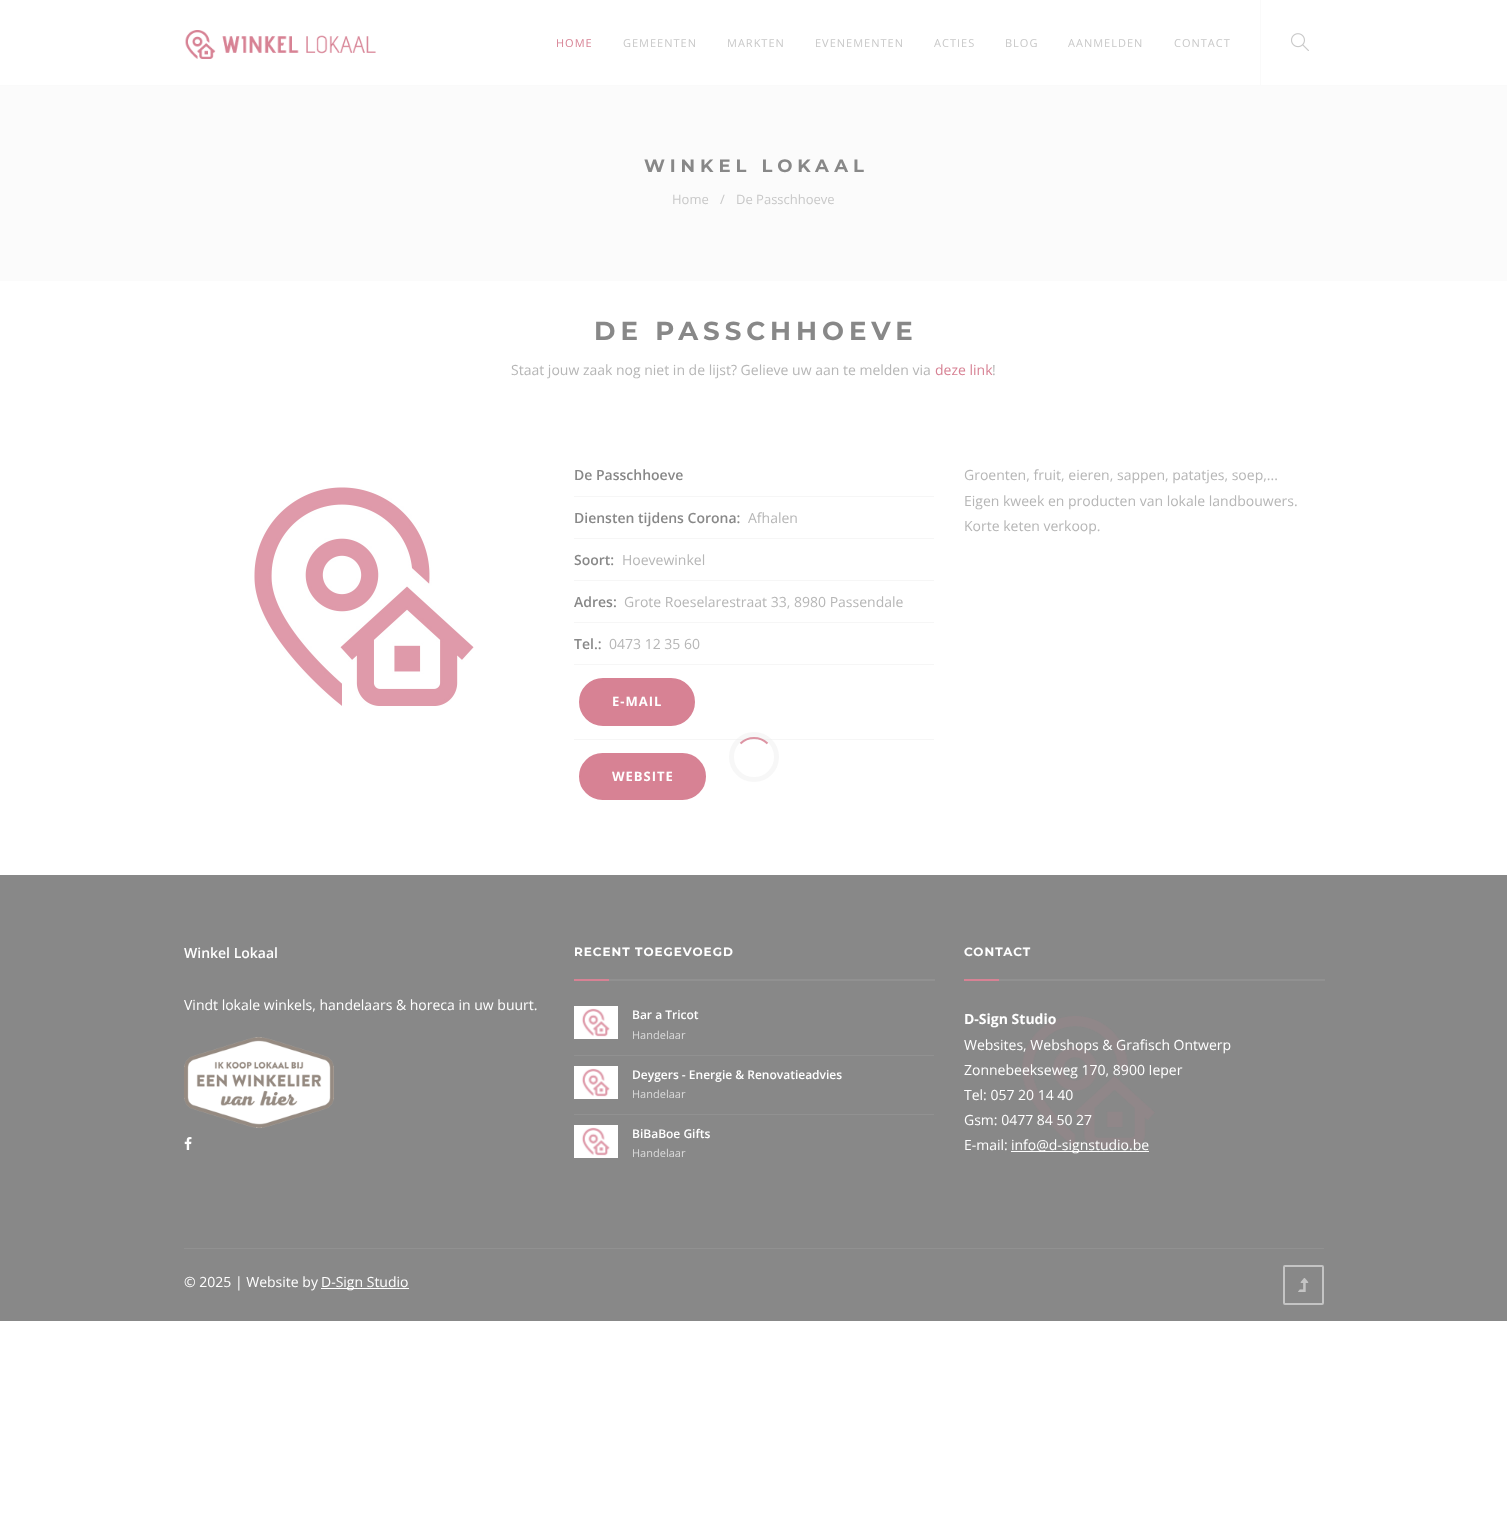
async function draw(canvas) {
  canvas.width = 1507;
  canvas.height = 1514;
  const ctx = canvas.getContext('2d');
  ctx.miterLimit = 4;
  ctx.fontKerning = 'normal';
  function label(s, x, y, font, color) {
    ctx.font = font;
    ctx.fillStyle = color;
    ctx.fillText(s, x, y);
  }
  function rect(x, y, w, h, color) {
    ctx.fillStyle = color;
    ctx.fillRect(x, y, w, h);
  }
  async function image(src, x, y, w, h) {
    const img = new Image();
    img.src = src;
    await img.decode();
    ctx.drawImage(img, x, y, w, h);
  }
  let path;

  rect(0, 0, 1507, 1514, '#fff');
  rect(0, 85, 1507, 1, '#fafafa');
  await image('assets/img1.png', 185, 30, 191, 29);
  ctx.letterSpacing = '1px';
  label('HOME', 556, 47, '11px Open Sans', '#d78294');
  label('GEMEENTEN', 623, 47, '11px Open Sans', '#c8c8c8');
  label('MARKTEN', 727, 47, '11px Open Sans', '#c8c8c8');
  label('EVENEMENTEN', 815, 47, '11px Open Sans', '#c8c8c8');
  label('ACTIES', 934, 47, '11px Open Sans', '#c8c8c8');
  label('BLOG', 1005, 47, '11px Open Sans', '#c8c8c8');
  label('AANMELDEN', 1068, 47, '11px Open Sans', '#c8c8c8');
  label('CONTACT', 1174, 47, '11px Open Sans', '#c8c8c8');
  rect(1260, 0, 1, 86, '#fafafa');
  await image('assets/img2.png', 1291, 33, 18, 18);
  rect(0, 86, 1507, 195, '#fbfbfb');
  ctx.letterSpacing = '5px';
  label('WINKEL LOKAAL', 644, 172, '100 18px Montserrat', '#888');
  ctx.letterSpacing = '0px';
  label('Home', 672, 204, '13px Open Sans', '#c8c8c8');
  label('/', 720, 204, '13px Open Sans', '#c8c8c8');
  label('De Passchhoeve', 736, 204, '13px Open Sans', '#c8c8c8');
  ctx.letterSpacing = '5px';
  label('DE PASSCHHOEVE', 594, 340, '100 26px Montserrat', '#888');
  ctx.letterSpacing = '0px';
  label('Staat jouw zaak nog niet in de lijst? Gelieve uw aan te melden via', 511, 375, '14px Open Sans', '#b6b6b6');
  label('deze link', 935, 375, '14px Open Sans', '#d78294');
  label('!', 992, 375, '14px Open Sans', '#b6b6b6');
  await image('assets/img3.png', 254, 487, 220, 219);
  rect(574, 496, 360, 1, '#f6f6f6');
  label('De Passchhoeve', 574, 480, '600 14px Open Sans', '#888');
  rect(574, 538, 360, 1, '#f6f6f6');
  label('Diensten tijdens Corona:', 574, 523, '600 14px Open Sans', '#888');
  label('Afhalen', 748, 523, '14px Open Sans', '#b6b6b6');
  rect(574, 580, 360, 1, '#f6f6f6');
  label('Soort:', 574, 565, '600 14px Open Sans', '#888');
  label('Hoevewinkel', 622, 565, '14px Open Sans', '#b6b6b6');
  rect(574, 622, 360, 1, '#f6f6f6');
  label('Adres:', 574, 607, '600 14px Open Sans', '#888');
  label('Grote Roeselarestraat 33, 8980 Passendale', 624, 607, '14px Open Sans', '#b6b6b6');
  rect(574, 664, 360, 1, '#f6f6f6');
  label('Tel.:', 574, 649, '600 14px Open Sans', '#888');
  label('0473 12 35 60', 609, 649, '14px Open Sans', '#b6b6b6');
  rect(574, 739, 360, 1, '#f6f6f6');
  ctx.fillStyle = '#d78294';
  ctx.beginPath();
  ctx.roundRect(580, 679, 114, 46, 23);
  ctx.fill();
  ctx.strokeStyle = '#d78294';
  ctx.lineWidth = 2;
  ctx.stroke();
  ctx.letterSpacing = '1px';
  label('E-MAIL', 612, 706, 'bold 13px Open Sans', '#fff');
  ctx.fillStyle = '#d78294';
  ctx.beginPath();
  ctx.roundRect(580, 754, 125, 45, 22.5);
  ctx.fill();
  ctx.stroke();
  label('WEBSITE', 612, 781, 'bold 13px Open Sans', '#fff');
  ctx.letterSpacing = '0px';
  label('Groenten, fruit, eieren, sappen, patatjes, soep,...', 964, 480, '14px Open Sans', '#b6b6b6');
  label('Eigen kweek en producten van lokale landbouwers.', 964, 506, '14px Open Sans', '#b6b6b6');
  label('Korte keten verkoop.', 964, 531, '14px Open Sans', '#b6b6b6');
  ctx.beginPath();
  ctx.arc(754, 757, 22.5, 0, 2 * Math.PI);
  ctx.strokeStyle = '#eeeeee75';
  ctx.lineWidth = 5;
  ctx.stroke();
  path = new Path2D('M740.5 743.5C748 736 760 736 767.5 743.5');
  ctx.strokeStyle = '#b4173975';
  ctx.lineWidth = 2;
  ctx.stroke(path);
  rect(0, 875, 1507, 446, '#888');
  label('Winkel Lokaal', 184, 958, '600 14px Open Sans', '#fff');
  label('Vindt lokale winkels, handelaars & horeca in uw buurt.', 184, 1010, '14px Open Sans', '#fff');
  await image('assets/img4.png', 184, 1037, 150, 91);
  await image('assets/img5.png', 184, 1137, 8, 13);
  ctx.letterSpacing = '1px';
  label('RECENT TOEGEVOEGD', 574, 956, '100 12px Montserrat', '#fff');
  rect(574, 979, 35, 2, '#d78294');
  rect(609, 979, 326, 2, '#919191');
  await image('assets/img6.png', 574, 1006, 44, 33);
  ctx.letterSpacing = '0px';
  label('Bar a Tricot', 632, 1019, '600 12px Open Sans', '#fff');
  label('Handelaar', 632, 1039, '11px Open Sans', '#dbdbdb');
  rect(574, 1055, 360, 1, '#919191');
  await image('assets/img6.png', 574, 1066, 44, 33);
  label('Deygers - Energie & Renovatieadvies', 632, 1079, '600 12px Open Sans', '#fff');
  label('Handelaar', 632, 1098, '11px Open Sans', '#dbdbdb');
  rect(574, 1114, 360, 1, '#919191');
  await image('assets/img6.png', 574, 1125, 44, 33);
  label('BiBaBoe Gifts', 632, 1138, '600 12px Open Sans', '#fff');
  label('Handelaar', 632, 1157, '11px Open Sans', '#dbdbdb');
  ctx.letterSpacing = '1px';
  label('CONTACT', 964, 956, '100 12px Montserrat', '#fff');
  rect(964, 979, 35, 2, '#d78294');
  rect(999, 979, 326, 2, '#919191');
  await image('assets/img7.png', 1022, 1016, 133, 132);
  ctx.letterSpacing = '0px';
  label('D-Sign Studio', 964, 1024, 'bold 14px Open Sans', '#fff');
  label('Websites, Webshops & Grafisch Ontwerp', 964, 1050, '14px Open Sans', '#fff');
  label('Zonnebeekseweg 170, 8900 Ieper', 964, 1075, '14px Open Sans', '#fff');
  label('Tel: 057 20 14 40', 964, 1100, '14px Open Sans', '#fff');
  label('Gsm: 0477 84 50 27', 964, 1125, '14px Open Sans', '#fff');
  label('E-mail:', 964, 1150, '14px Open Sans', '#fff');
  rect(1011, 1151, 138, 1, '#fff');
  label('info@d-signstudio.be', 1011, 1150, '14px Open Sans', '#fff');
  rect(184, 1248, 1140, 1, '#919191');
  label('© 2025 | Website by', 184, 1287, '14px Open Sans', '#fff');
  rect(321, 1288, 88, 1, '#fff');
  label('D-Sign Studio', 321, 1287, '14px Open Sans', '#fff');
  ctx.beginPath();
  ctx.roundRect(1284, 1266, 39, 38, 1);
  ctx.strokeStyle = '#c4c4c4';
  ctx.stroke();
  await image('assets/img8.png', 1298, 1278, 11, 14);
}

draw(document.querySelector('canvas'));
